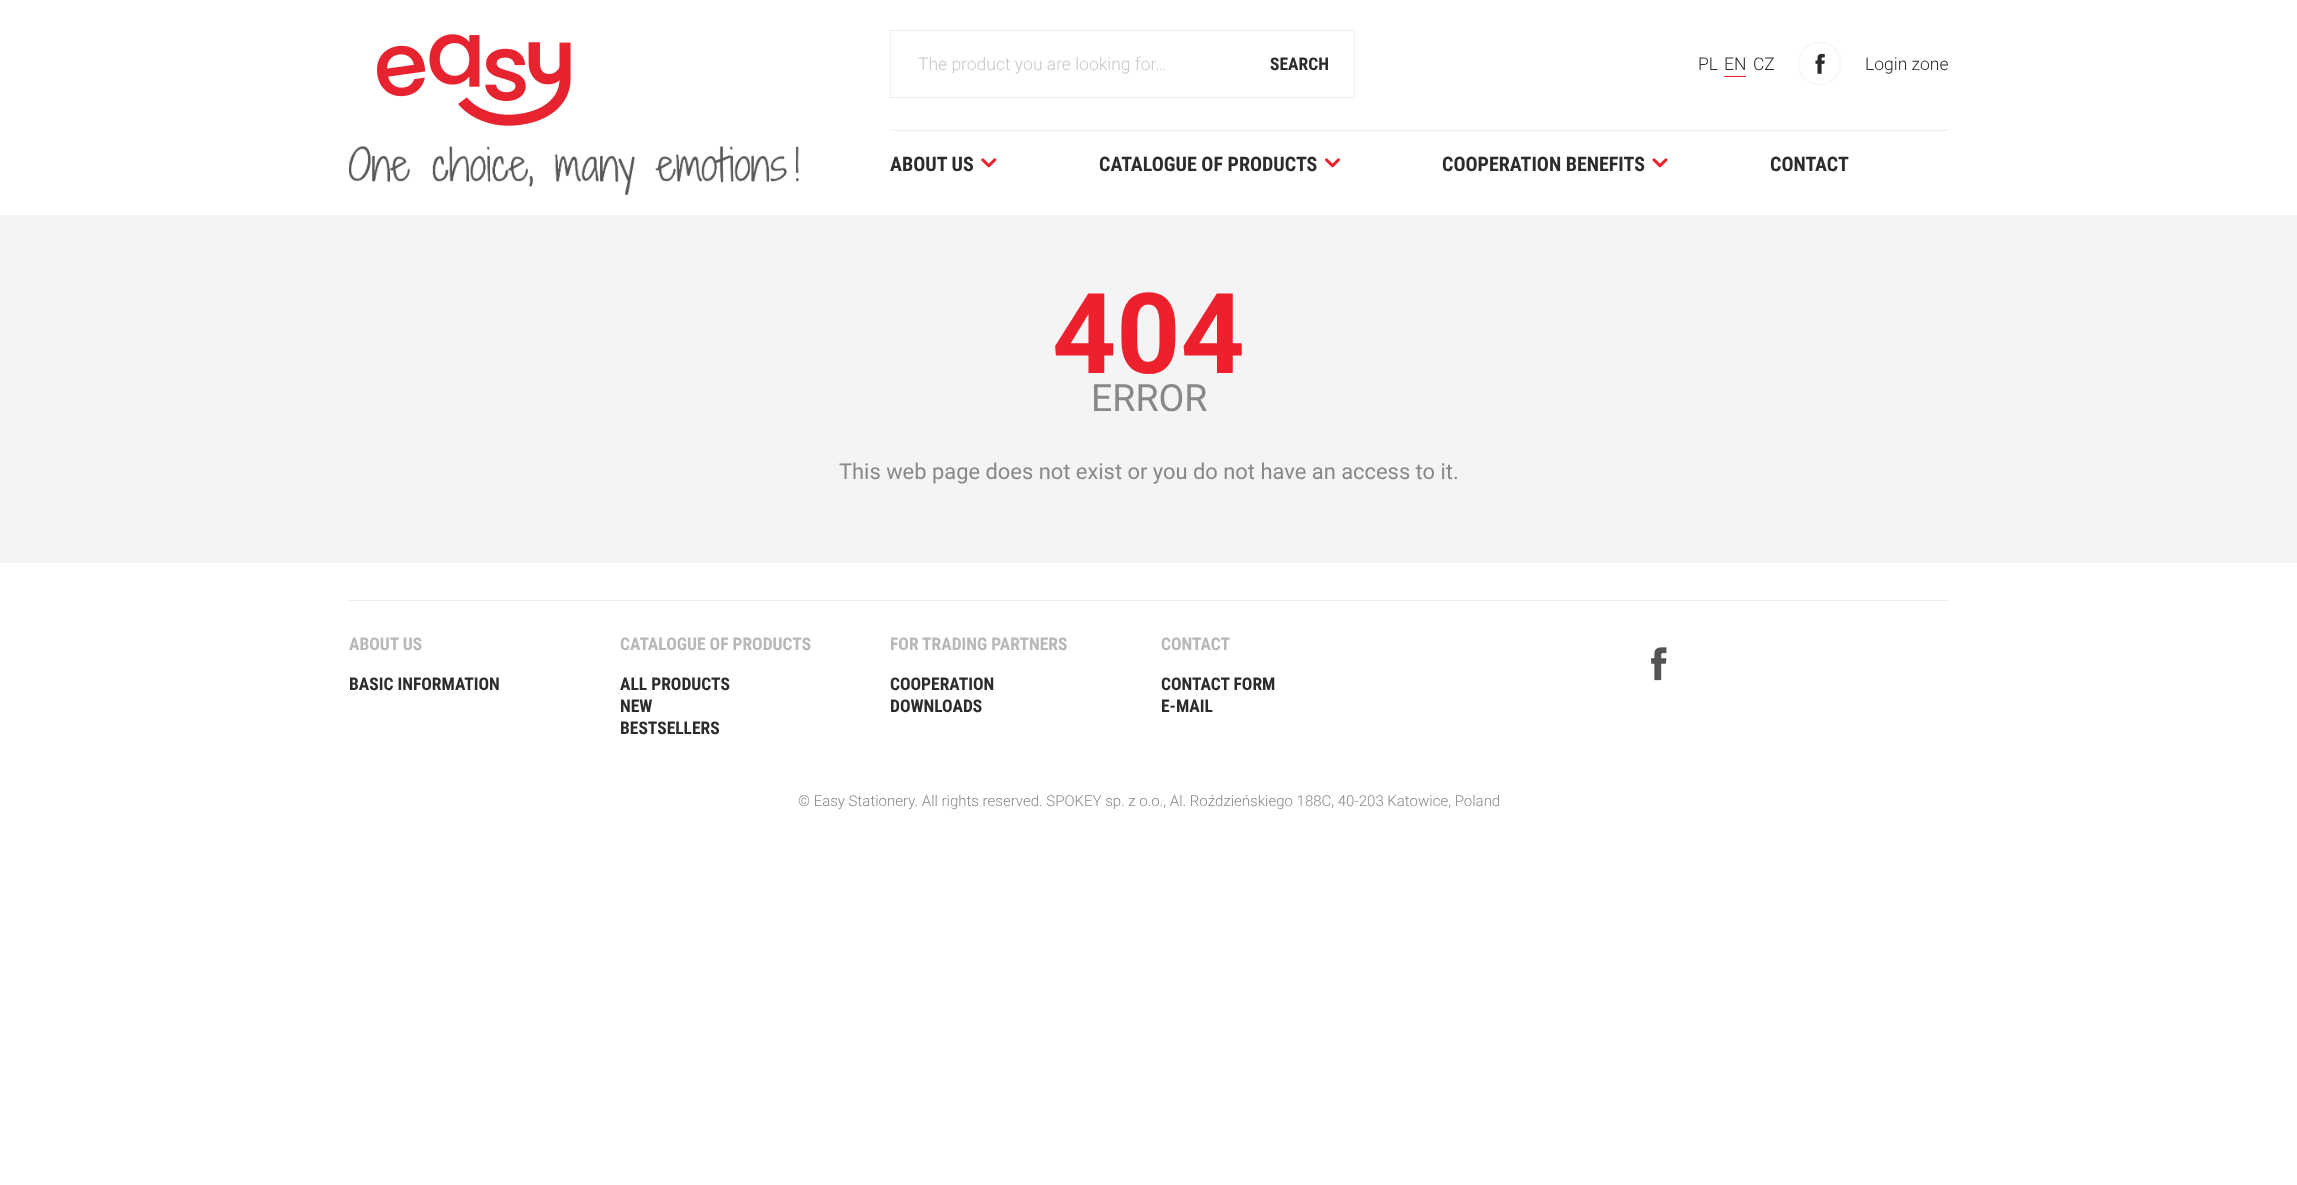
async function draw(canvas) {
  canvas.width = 2297;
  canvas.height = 1185;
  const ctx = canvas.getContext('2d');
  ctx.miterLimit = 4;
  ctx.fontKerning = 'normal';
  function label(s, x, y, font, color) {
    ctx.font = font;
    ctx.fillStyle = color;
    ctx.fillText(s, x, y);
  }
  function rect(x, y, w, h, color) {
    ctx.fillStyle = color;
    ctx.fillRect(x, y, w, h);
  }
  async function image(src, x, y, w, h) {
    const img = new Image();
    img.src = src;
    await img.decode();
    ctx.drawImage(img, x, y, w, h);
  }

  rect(0, 0, 2297, 1185, '#fff');
  await image('assets/img1.png', 377, 34, 194, 92);
  ctx.strokeStyle = '#eee';
  ctx.strokeRect(890.5, 30.5, 464, 67);
  label('The product you are looking for…', 918, 70, '300 17.5px Roboto', '#c8c8c8');
  label('SEARCH', 1270, 70, 'bold 17.5px Roboto Condensed', '#2c2c2c');
  label('PL', 1698, 70, '300 17.5px Roboto', '#2c2c2c');
  label('EN', 1724, 70, '300 17.5px Roboto', '#2c2c2c');
  rect(1724, 76, 22, 1, '#ed212e');
  label('CZ', 1753, 70, '300 17.5px Roboto', '#2c2c2c');
  ctx.fillStyle = '#0000001f';
  ctx.filter = 'blur(1px)';
  ctx.beginPath();
  ctx.roundRect(1799, 43, 41, 41, 20.5);
  ctx.fill();
  ctx.filter = 'none';
  ctx.fillStyle = '#fff';
  ctx.beginPath();
  ctx.arc(1819.5, 63.5, 20.5, 0, 2 * Math.PI);
  ctx.fill();
  await image('assets/img2.png', 1815, 53, 10, 21);
  label('Login zone', 1865, 70, '300 17.5px Roboto', '#2c2c2c');
  await image('assets/img3.png', 349, 145, 450, 50);
  rect(890, 130, 1059, 1, '#eee');
  label('ABOUT US', 890, 171, 'bold 20px Roboto Condensed', '#2c2c2c');
  await image('assets/img4.png', 981, 158, 16, 10);
  label('CATALOGUE OF PRODUCTS', 1099, 171, 'bold 20px Roboto Condensed', '#2c2c2c');
  await image('assets/img5.png', 1325, 158, 15, 10);
  label('COOPERATION BENEFITS', 1442, 171, 'bold 20px Roboto Condensed', '#2c2c2c');
  await image('assets/img6.png', 1652, 158, 16, 10);
  label('CONTACT', 1770, 171, 'bold 20px Roboto Condensed', '#2c2c2c');
  rect(0, 215, 2297, 348, '#f4f4f4');
  label('404', 1052, 373, 'bold 112px Roboto', '#ed212e');
  label('ERROR', 1091, 411, '37.5px Roboto', '#888');
  label('This web page does not exist or you do not have an access to it.', 839, 479, '21.9px Roboto', '#888');
  rect(349, 600, 1600, 1, '#eee');
  label('ABOUT US', 349, 650, 'bold 17.5px Roboto Condensed', '#b8b8b8');
  label('BASIC INFORMATION', 349, 690, 'bold 17.5px Roboto Condensed', '#2c2c2c');
  label('CATALOGUE OF PRODUCTS', 620, 650, 'bold 17.5px Roboto Condensed', '#b8b8b8');
  label('ALL PRODUCTS', 620, 690, 'bold 17.5px Roboto Condensed', '#2c2c2c');
  label('NEW', 620, 712, 'bold 17.5px Roboto Condensed', '#2c2c2c');
  label('BESTSELLERS', 620, 734, 'bold 17.5px Roboto Condensed', '#2c2c2c');
  label('FOR TRADING PARTNERS', 890, 650, 'bold 17.5px Roboto Condensed', '#b8b8b8');
  label('COOPERATION', 890, 690, 'bold 17.5px Roboto Condensed', '#2c2c2c');
  label('DOWNLOADS', 890, 712, 'bold 17.5px Roboto Condensed', '#2c2c2c');
  label('CONTACT', 1161, 650, 'bold 17.5px Roboto Condensed', '#b8b8b8');
  label('CONTACT FORM', 1161, 690, 'bold 17.5px Roboto Condensed', '#2c2c2c');
  label('E-MAIL', 1161, 712, 'bold 17.5px Roboto Condensed', '#2c2c2c');
  await image('assets/img7.png', 1651, 647, 16, 34);
  label('© Easy Stationery. All rights reserved. SPOKEY sp. z o.o., Al. Roździeńskiego 188C, 40-203 Katowice, Poland', 798, 806, '300 15px Roboto', '#888');
}

draw(document.querySelector('canvas'));
